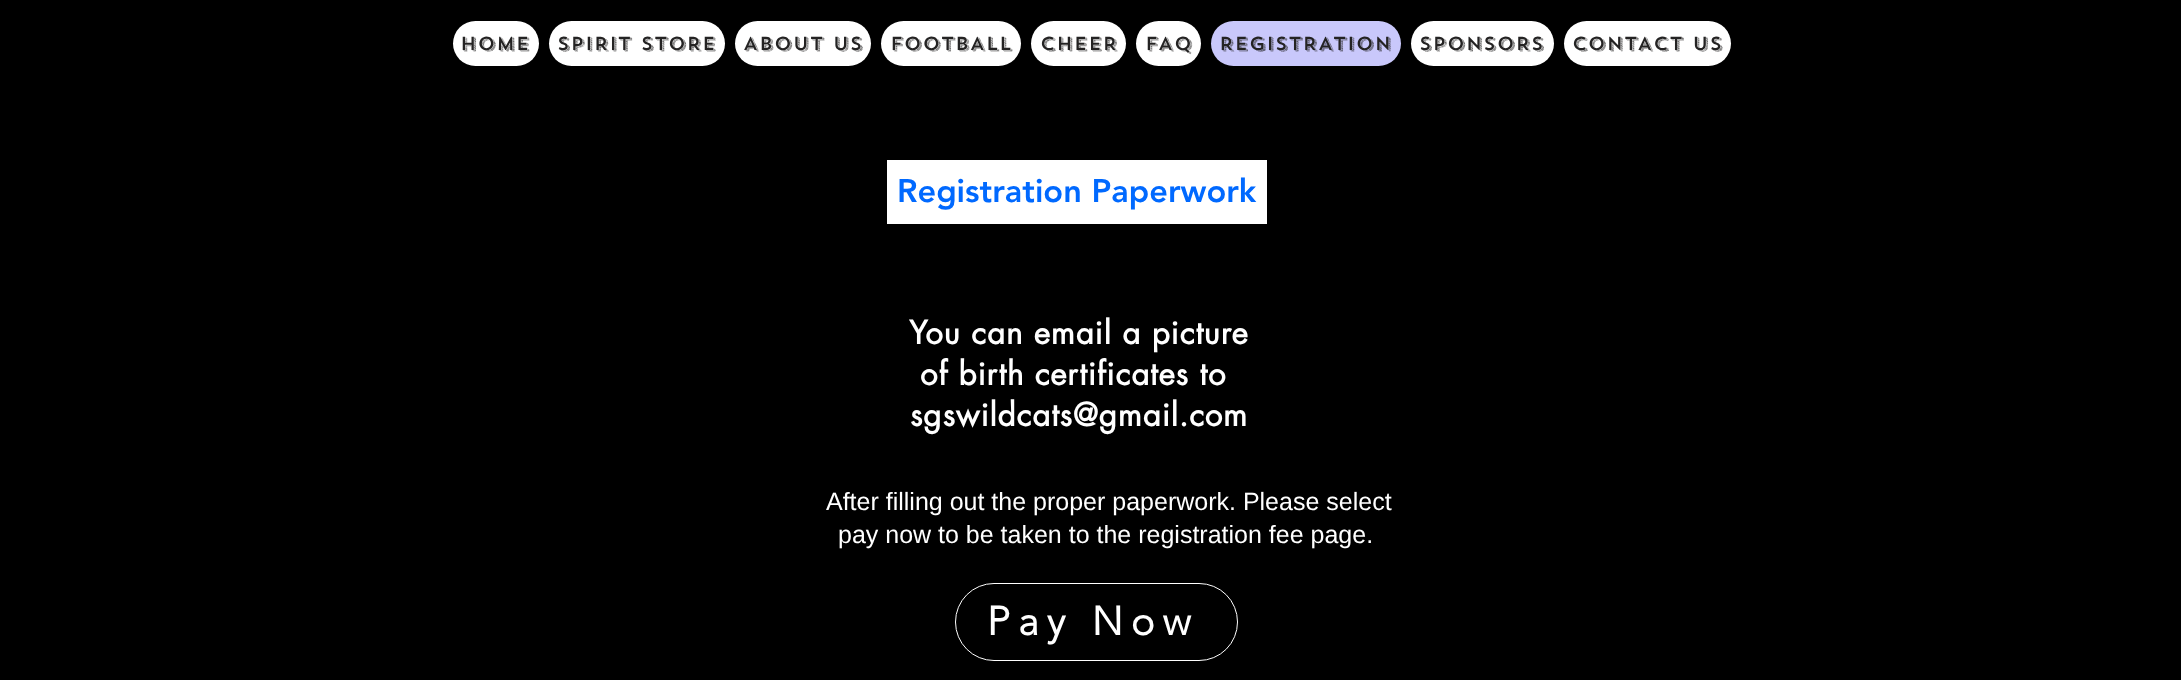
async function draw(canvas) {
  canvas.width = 2181;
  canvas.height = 680;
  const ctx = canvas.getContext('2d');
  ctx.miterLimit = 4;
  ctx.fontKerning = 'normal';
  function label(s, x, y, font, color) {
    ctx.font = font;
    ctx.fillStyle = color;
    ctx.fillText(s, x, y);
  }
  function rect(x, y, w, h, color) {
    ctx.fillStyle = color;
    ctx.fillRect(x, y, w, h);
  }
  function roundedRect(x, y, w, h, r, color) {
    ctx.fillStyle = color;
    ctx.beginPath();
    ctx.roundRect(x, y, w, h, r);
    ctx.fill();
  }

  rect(0, 0, 2181, 680, '#000');
  roundedRect(453, 21, 86, 45, 22.5, '#fff');
  ctx.letterSpacing = '0.9px';
  label('HOME', 460, 50, '500 18.75px "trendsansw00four"', '#242323');
  roundedRect(549, 21, 176, 45, 22.5, '#fff');
  label('SPIRIT STORE', 557, 50, '500 18.75px "trendsansw00four"', '#242323');
  roundedRect(735, 21, 136, 45, 22.5, '#fff');
  label('ABOUT US', 743, 50, '500 18.75px "trendsansw00four"', '#242323');
  roundedRect(881, 21, 140, 45, 22.5, '#fff');
  label('FOOTBALL', 890, 50, '500 18.75px "trendsansw00four"', '#242323');
  roundedRect(1031, 21, 95, 45, 22.5, '#fff');
  label('CHEER', 1040, 50, '500 18.75px "trendsansw00four"', '#242323');
  roundedRect(1136, 21, 65, 45, 22.5, '#fff');
  label('FAQ', 1145, 50, '500 18.75px "trendsansw00four"', '#242323');
  roundedRect(1211, 21, 190, 45, 22.5, '#c9c8fb');
  label('REGISTRATION', 1219, 50, '500 18.75px "trendsansw00four"', '#242323');
  roundedRect(1411, 21, 143, 45, 22.5, '#fff');
  label('SPONSORS', 1419, 50, '500 18.75px "trendsansw00four"', '#242323');
  roundedRect(1564, 21, 167, 45, 22.5, '#fff');
  label('CONTACT US', 1572, 50, '500 18.75px "trendsansw00four"', '#242323');
  rect(887, 160, 380, 64, '#fff');
  ctx.letterSpacing = '0px';
  label('Registration Paperwork', 897, 202, '900 32.5px "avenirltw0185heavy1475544"', '#0069ff');
  ctx.letterSpacing = '0.9px';
  label('You can email a picture', 909, 344, 'bold 31.25px futura', '#fff');
  label('of birth certificates to', 920, 385, 'bold 31.25px futura', '#fff');
  label('sgswildcats@gmail.com', 910, 426, 'bold 31.25px futura', '#fff');
  ctx.letterSpacing = '0px';
  label('After filling out the proper paperwork. Please select', 826, 510, '25px Liberation Sans', '#fff');
  label('pay now to be taken to the registration fee page.', 838, 543, '25px Liberation Sans', '#fff');
  ctx.beginPath();
  ctx.roundRect(955.5, 583.5, 282, 77, 38.5);
  ctx.strokeStyle = '#fff';
  ctx.stroke();
  ctx.letterSpacing = '8px';
  label('Pay Now', 987, 635, 'bold 40px "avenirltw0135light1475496"', '#fff');
}

draw(document.querySelector('canvas'));
